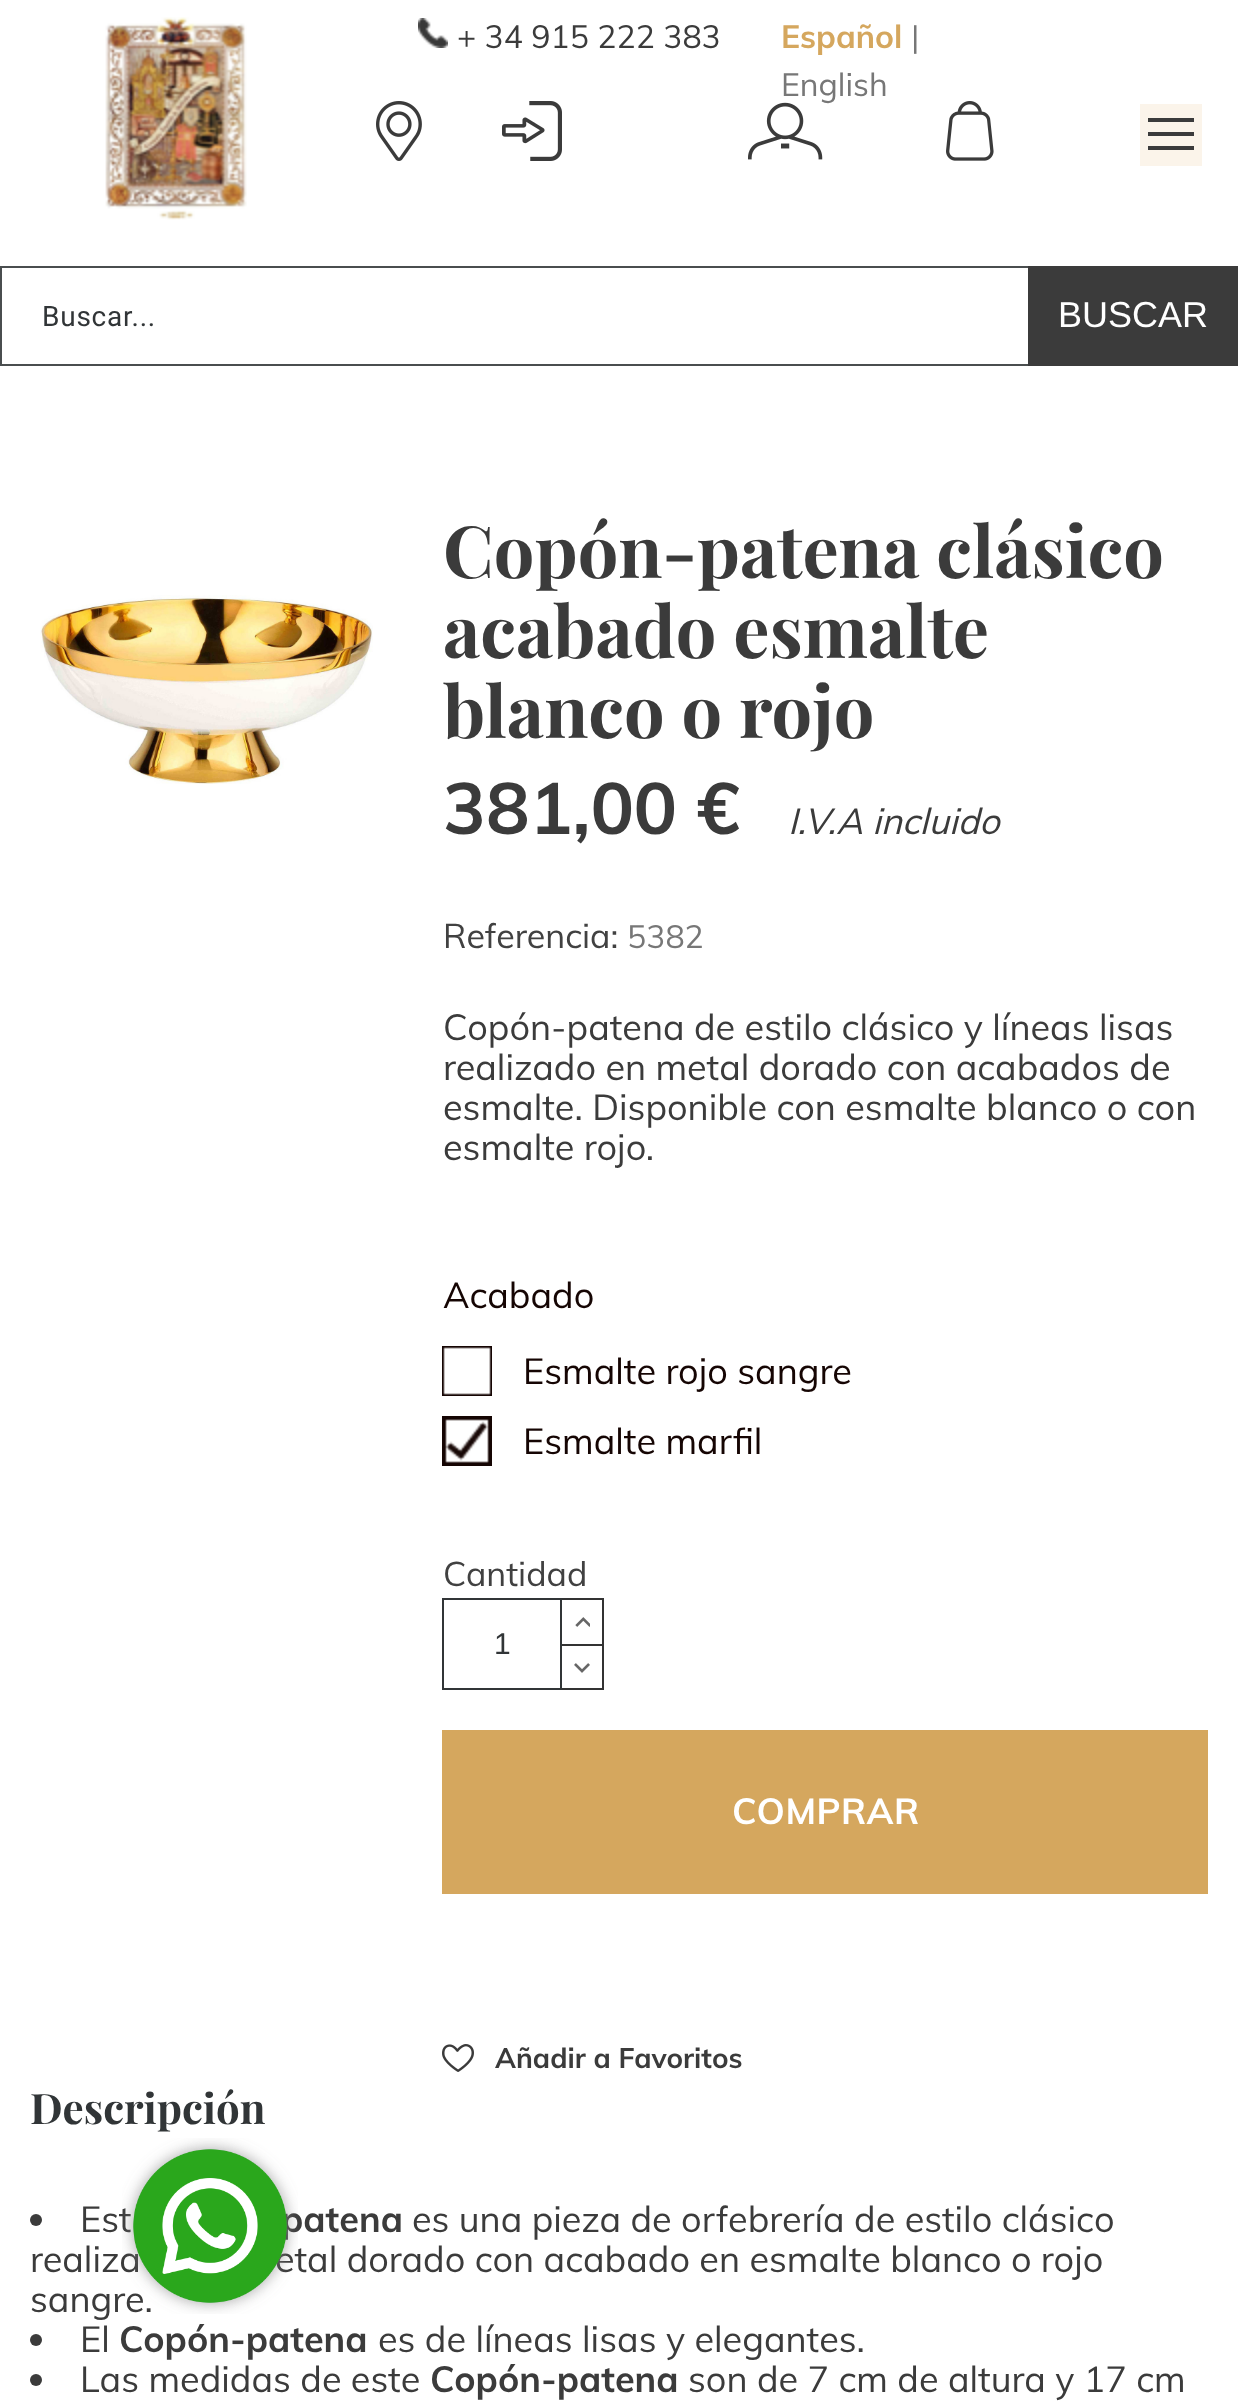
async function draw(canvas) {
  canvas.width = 1238;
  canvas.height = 2405;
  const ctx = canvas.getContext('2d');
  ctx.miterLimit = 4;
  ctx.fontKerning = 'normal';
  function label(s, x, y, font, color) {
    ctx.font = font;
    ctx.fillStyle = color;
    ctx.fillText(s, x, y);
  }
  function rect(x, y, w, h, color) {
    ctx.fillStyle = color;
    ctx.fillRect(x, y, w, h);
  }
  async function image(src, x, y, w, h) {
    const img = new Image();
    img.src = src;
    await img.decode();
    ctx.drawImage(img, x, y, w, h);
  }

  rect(0, 0, 1238, 2405, '#fff');
  await image('assets/img1.png', 105, 17, 142, 203);
  await image('assets/img2.png', 418, 18, 30, 30);
  label('+ 34 915 222 383', 457, 48, '32px Muli', '#3b3b3b');
  label('Español', 781, 48, 'bold 32px Muli', '#d5a75e');
  label('|', 911, 48, '32px Muli', '#777');
  label('English', 781, 96, '32px Muli', '#777');
  await image('assets/img3.png', 376, 101, 46, 60);
  await image('assets/img4.png', 502, 101, 60, 60);
  await image('assets/img5.png', 748, 102, 75, 58);
  await image('assets/img6.png', 946, 101, 48, 60);
  rect(1140, 104, 62, 62, '#fbf4ea');
  rect(1148, 118, 46, 4, '#3b3b3b');
  rect(1148, 132, 46, 4, '#3b3b3b');
  rect(1148, 146, 46, 4, '#3b3b3b');
  ctx.strokeStyle = '#4a4e4f';
  ctx.lineWidth = 2;
  ctx.strokeRect(1, 267, 1236, 98);
  ctx.letterSpacing = '0.75px';
  label('Buscar...', 42, 326, '28px Roboto', '#313537');
  rect(1028, 266, 210, 100, '#3b3b3b');
  ctx.letterSpacing = '0px';
  label('BUSCAR', 1058, 327, '36px Liberation Sans', '#fff');
  label('Est', 80, 2232, '36px Muli', '#3b3b3b');
  label('patena', 281, 2232, 'bold 36px Muli', '#3b3b3b');
  label('realiza', 30, 2272, '36px Muli', '#3b3b3b');
  label('etal dorado con acabado en esmalte blanco o rojo', 275, 2272, '36px Muli', '#3b3b3b');
  label('sangre.', 30, 2312, '36px Muli', '#3b3b3b');
  await image('assets/img7.png', 122, 2138, 176, 176);
  await image('assets/img8.png', 40, 595, 333, 189);
  label('Copón-patena clásico', 443, 578, 'bold 72px Playfair Display', '#3b3b3b');
  label('acabado esmalte', 443, 658, 'bold 72px Playfair Display', '#3b3b3b');
  label('blanco o rojo', 443, 738, 'bold 72px Playfair Display', '#3b3b3b');
  label('381,00 €', 443, 834, 'bold 72px Muli', '#3b3b3b');
  label('I.V.A incluido', 788, 834, 'italic 36px Muli', '#3b3b3b');
  label('Referencia:', 443, 948, '34px Muli', '#414141');
  label('5382', 627, 948, '32px Muli', '#777');
  label('Copón-patena de estilo clásico y líneas lisas', 443, 1040, '36px Muli', '#3b3b3b');
  label('realizado en metal dorado con acabados de', 443, 1080, '36px Muli', '#3b3b3b');
  label('esmalte. Disponible con esmalte blanco o con', 443, 1120, '36px Muli', '#3b3b3b');
  label('esmalte rojo.', 443, 1160, '36px Muli', '#3b3b3b');
  label('Acabado', 443, 1308, '36px Muli', '#150503');
  await image('assets/img9.png', 442, 1346, 50, 50);
  label('Esmalte rojo sangre', 523, 1384, '36px Muli', '#150503');
  await image('assets/img10.png', 442, 1416, 50, 50);
  label('Esmalte marfil', 523, 1454, '36px Muli', '#150503');
  label('Cantidad', 443, 1586, '34px Muli', '#414141');
  ctx.strokeStyle = '#313537';
  ctx.strokeRect(443, 1599, 118, 90);
  ctx.letterSpacing = '1px';
  label('1', 494, 1654, '30px Liberation Sans', '#313537');
  rect(562, 1598, 42, 2, '#333');
  rect(602, 1598, 2, 46, '#333');
  await image('assets/img11.png', 575, 1617, 15, 10);
  rect(562, 1644, 42, 2, '#333');
  rect(602, 1644, 2, 46, '#333');
  rect(562, 1688, 42, 2, '#333');
  await image('assets/img12.png', 574, 1663, 16, 10);
  rect(442, 1730, 766, 164, '#d5a75e');
  ctx.letterSpacing = '0.5px';
  label('COMPRAR', 732, 1824, 'bold 36px Muli', '#fff');
  await image('assets/img13.png', 442, 2044, 32, 28);
  ctx.letterSpacing = '0px';
  label('Añadir a Favoritos', 495, 2068, 'bold 28px Muli', '#3b3b3b');
  label('Descripción', 30, 2124, 'bold 42px Playfair Display', '#313537');
  ctx.fillStyle = '#3b3b3b';
  ctx.beginPath();
  ctx.arc(36, 2220, 6, 0, 2 * Math.PI);
  ctx.fill();
  label('es una pieza de orfebrería de estilo clásico', 412, 2232, '36px Muli', '#3b3b3b');
  ctx.beginPath();
  ctx.arc(36, 2340, 6, 0, 2 * Math.PI);
  ctx.fill();
  label('El', 80, 2352, '36px Muli', '#3b3b3b');
  label('Copón-patena', 119, 2352, 'bold 36px Muli', '#3b3b3b');
  label('es de líneas lisas y elegantes.', 378, 2352, '36px Muli', '#3b3b3b');
  ctx.beginPath();
  ctx.arc(36, 2380, 6, 0, 2 * Math.PI);
  ctx.fill();
  label('Las medidas de este', 80, 2392, '36px Muli', '#3b3b3b');
  label('Copón-patena', 430, 2392, 'bold 36px Muli', '#3b3b3b');
  label('son de 7 cm de altura y 17 cm', 688, 2392, '36px Muli', '#3b3b3b');
}

draw(document.querySelector('canvas'));
